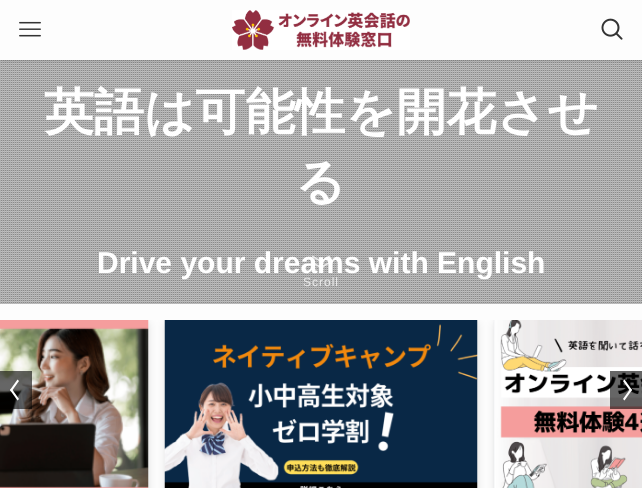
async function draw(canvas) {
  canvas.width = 642;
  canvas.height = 488;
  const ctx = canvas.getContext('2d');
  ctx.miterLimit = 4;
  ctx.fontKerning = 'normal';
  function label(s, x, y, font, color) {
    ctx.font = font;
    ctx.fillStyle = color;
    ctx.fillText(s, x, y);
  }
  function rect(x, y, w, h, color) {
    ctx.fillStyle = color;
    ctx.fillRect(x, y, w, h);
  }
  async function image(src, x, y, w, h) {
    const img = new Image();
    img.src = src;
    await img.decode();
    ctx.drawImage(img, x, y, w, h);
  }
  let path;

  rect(0, 0, 642, 488, '#fdfdfd');
  rect(0, 60, 642, 244, '#c0c0c0');
  await image('assets/img4.png', 0, 60, 642, 244);
  ctx.save();
  ctx.beginPath();
  ctx.rect(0, 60, 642, 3);
  ctx.clip();
  ctx.fillStyle = '#0000001f';
  ctx.filter = 'blur(2px)';
  ctx.beginPath();
  ctx.rect(0, 1, 642, 60);
  ctx.fill();
  ctx.filter = 'none';
  ctx.restore();
  await image('assets/img1.png', 19, 21, 22, 16);
  await image('assets/img2.png', 232, 10, 178, 40);
  await image('assets/img3.png', 601, 18, 22, 22);
  label('英語は可能性を開花させ', 44, 129, 'bold 50px WenQuanYi Zen Hei', '#fff');
  label('る', 295, 199, 'bold 50px WenQuanYi Zen Hei', '#fff');
  label('Drive your dreams with English', 97, 273, 'bold 30px Liberation Sans', '#fff');
  await image('assets/img5.png', 311, 255, 19, 13);
  ctx.letterSpacing = '1px';
  label('Scroll', 303, 286, '12px Liberation Sans', '#eaeaea');
  ctx.save();
  ctx.beginPath();
  ctx.rect(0, 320, 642, 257);
  ctx.clip();
  ctx.fillStyle = '#0000001a';
  ctx.filter = 'blur(4px)';
  ctx.beginPath();
  ctx.rect(-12, 322, 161, 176);
  ctx.fill();
  ctx.filter = 'none';
  ctx.restore();
  await image('assets/img6.png', 0, 320, 149, 168);
  ctx.save();
  ctx.beginPath();
  ctx.rect(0, 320, 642, 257);
  ctx.clip();
  ctx.fillStyle = '#0000001a';
  ctx.filter = 'blur(4px)';
  ctx.beginPath();
  ctx.rect(165, 322, 313, 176);
  ctx.fill();
  ctx.filter = 'none';
  ctx.restore();
  await image('assets/img7.png', 164, 320, 314, 168);
  ctx.save();
  ctx.beginPath();
  ctx.rect(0, 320, 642, 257);
  ctx.clip();
  ctx.fillStyle = '#0000001a';
  ctx.filter = 'blur(4px)';
  ctx.beginPath();
  ctx.rect(494, 322, 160, 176);
  ctx.fill();
  ctx.filter = 'none';
  ctx.restore();
  await image('assets/img8.png', 493, 320, 149, 168);
  rect(0, 371, 32, 38, '#00000099');
  ctx.fillStyle = '#fff';
  path = new Path2D('M11.5 388.5L19 399L17.5 400.5L10 390Z');
  ctx.fill(path);
  path = new Path2D('M17.5 379.5L19 381L11.5 391.5L10 390Z');
  ctx.fill(path);
  rect(610, 371, 32, 38, '#00000099');
  ctx.fillStyle = '#fff';
  path = new Path2D('M624.5 379.5L632 390L630.5 391.5L623 381Z');
  ctx.fill(path);
  path = new Path2D('M630.5 388.5L632 390L624.5 400.5L623 399Z');
  ctx.fill(path);
}

draw(document.querySelector('canvas'));
